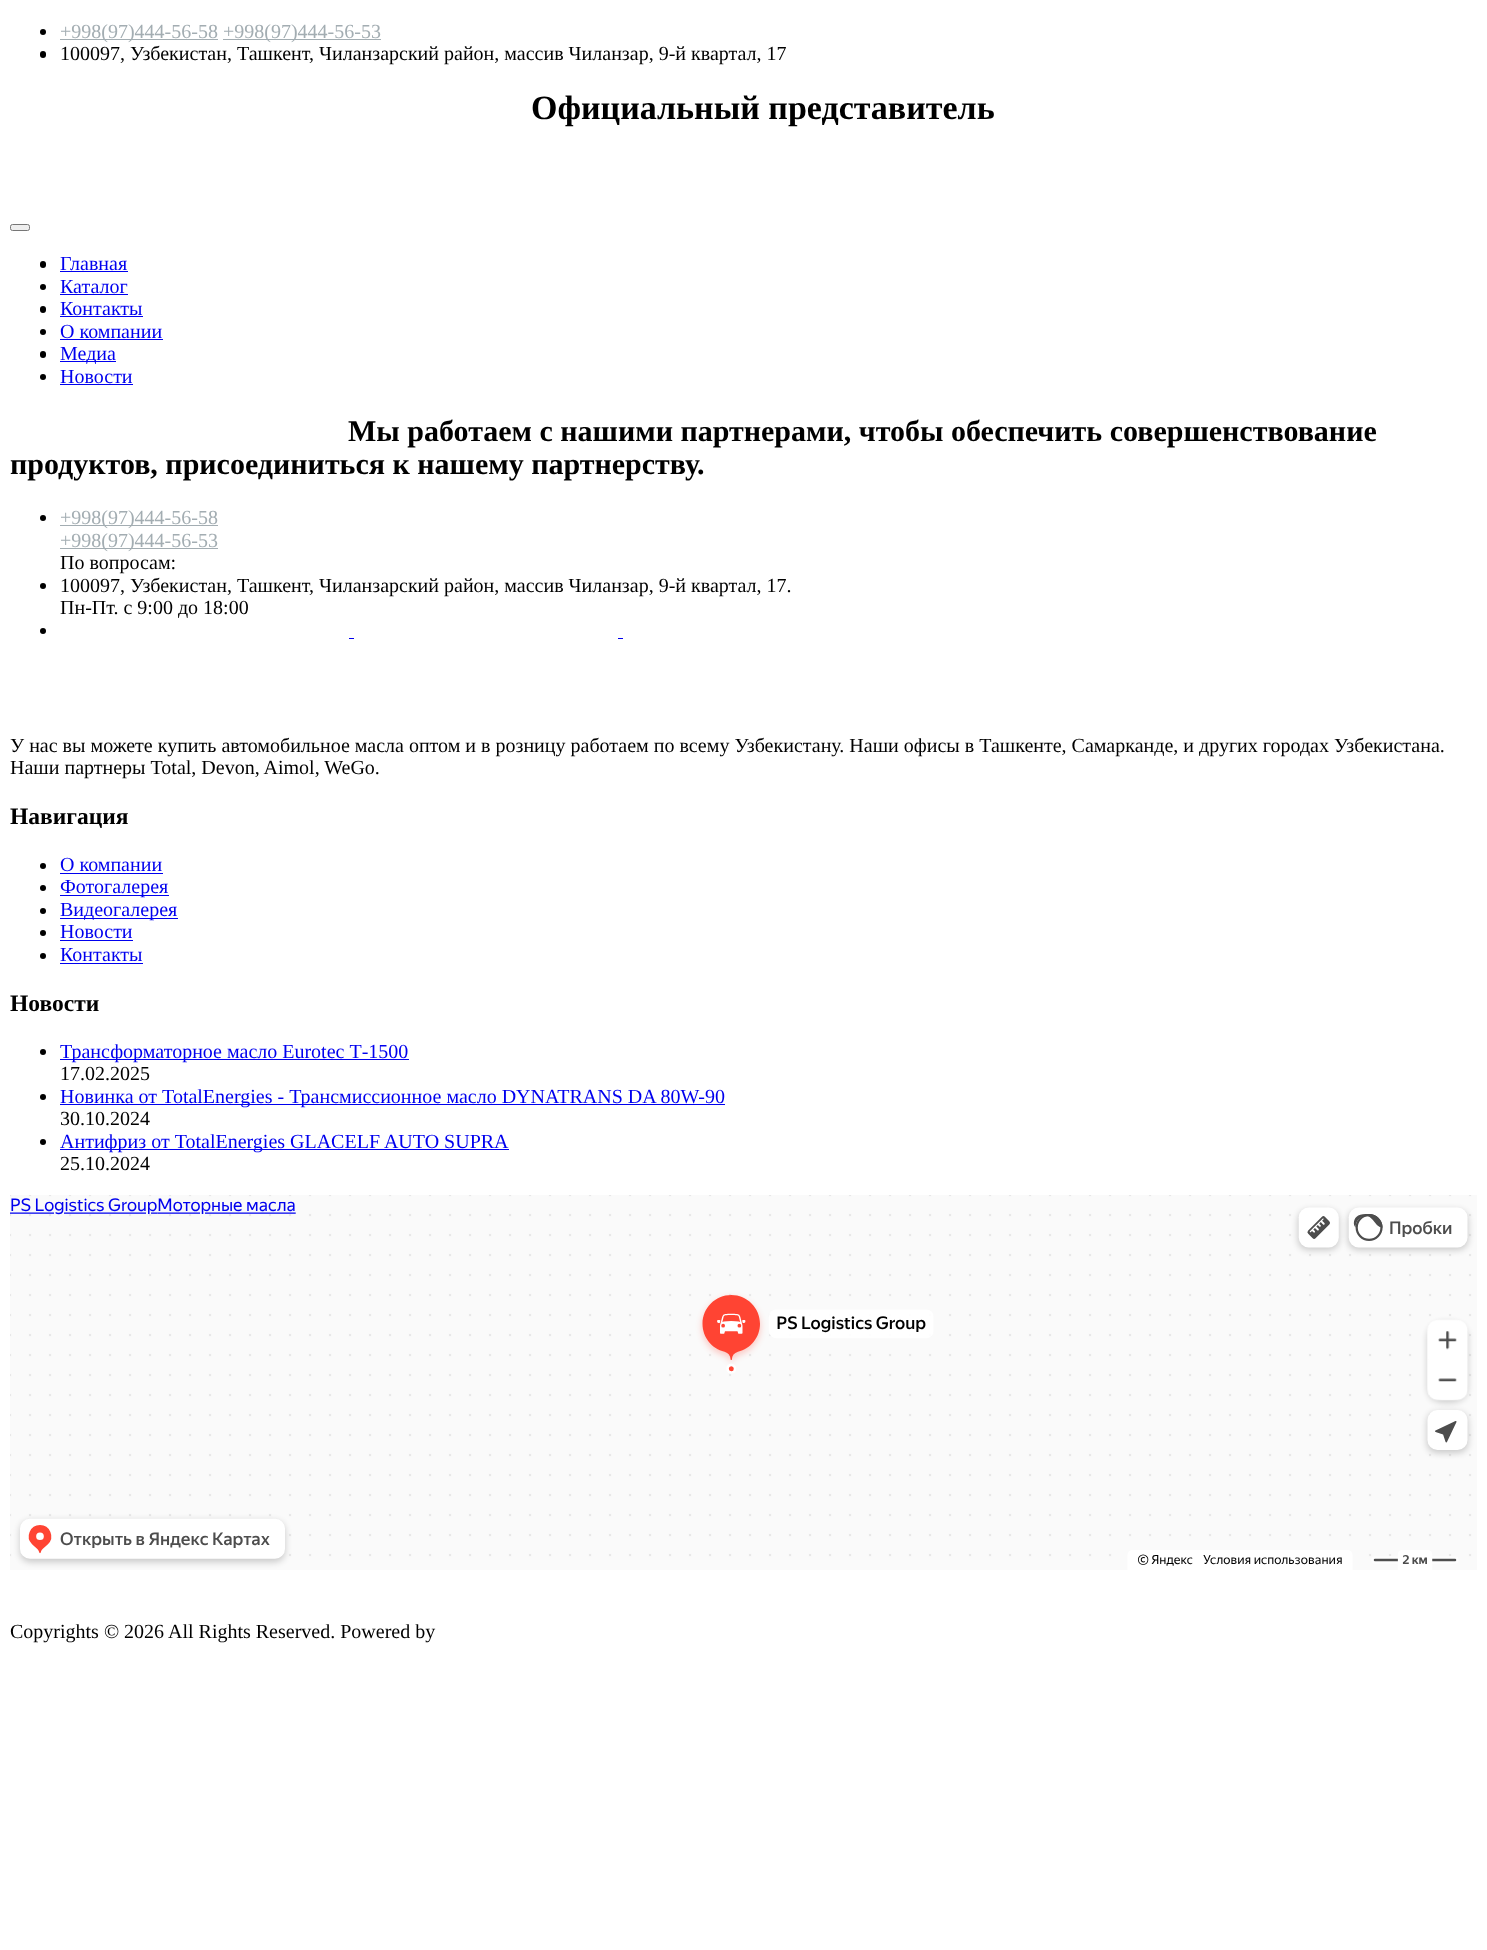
async function draw(canvas) {
  canvas.width = 1487;
  canvas.height = 1950;
  const ctx = canvas.getContext('2d');
  ctx.miterLimit = 4;
  ctx.fontKerning = 'normal';
  function label(s, x, y, font, color) {
    ctx.font = font;
    ctx.fillStyle = color;
    ctx.fillText(s, x, y);
  }
  function rect(x, y, w, h, color) {
    ctx.fillStyle = color;
    ctx.fillRect(x, y, w, h);
  }
  function roundedRect(x, y, w, h, r, color) {
    ctx.fillStyle = color;
    ctx.beginPath();
    ctx.roundRect(x, y, w, h, r);
    ctx.fill();
  }
  async function image(src, x, y, w, h) {
    const img = new Image();
    img.src = src;
    await img.decode();
    ctx.drawImage(img, x, y, w, h);
  }

  rect(0, 0, 1487, 1950, '#fff');
  ctx.fillStyle = '#000';
  ctx.beginPath();
  ctx.arc(43, 32, 3, 0, 2 * Math.PI);
  ctx.fill();
  rect(60, 39, 158, 1, '#a3adb2');
  label('+998(97)444-56-58', 60, 38, '20px Liberation Serif', '#a3adb2');
  rect(223, 39, 158, 1, '#a3adb2');
  label('+998(97)444-56-53', 223, 38, '20px Liberation Serif', '#a3adb2');
  roundedRect(40, 51, 6, 7, 3, '#000');
  label('100097, Узбекистан, Ташкент, Чиланзарский район, массив Чиланзар, 9-й квартал, 17', 60, 60, '20px Liberation Serif', '#000');
  label('Официальный представитель', 531, 119, 'bold 34px Liberation Serif', '#000');
  ctx.fillStyle = '#efefef';
  ctx.beginPath();
  ctx.roundRect(10.5, 224.5, 19, 6, 2);
  ctx.fill();
  ctx.strokeStyle = '#767676';
  ctx.stroke();
  roundedRect(40, 261, 6, 7, 3, '#000');
  label('Главная', 60, 270, '20px Liberation Serif', '#00e');
  rect(60, 271, 68, 1, '#00e');
  ctx.fillStyle = '#000';
  ctx.beginPath();
  ctx.arc(43, 287, 3, 0, 2 * Math.PI);
  ctx.fill();
  label('Каталог', 60, 293, '20px Liberation Serif', '#00e');
  rect(60, 294, 68, 1, '#00e');
  roundedRect(40, 306, 6, 7, 3, '#000');
  label('Контакты', 60, 315, '20px Liberation Serif', '#00e');
  rect(60, 316, 83, 1, '#00e');
  ctx.fillStyle = '#000';
  ctx.beginPath();
  ctx.arc(43, 332, 3, 0, 2 * Math.PI);
  ctx.fill();
  label('О компании', 60, 338, '20px Liberation Serif', '#00e');
  rect(60, 339, 103, 1, '#00e');
  roundedRect(40, 351, 6, 7, 3, '#000');
  rect(60, 361, 56, 1, '#00e');
  label('Медиа', 60, 360, '20px Liberation Serif', '#00e');
  ctx.fillStyle = '#000';
  ctx.beginPath();
  ctx.arc(43, 377, 3, 0, 2 * Math.PI);
  ctx.fill();
  label('Новости', 60, 383, '20px Liberation Serif', '#00e');
  rect(60, 384, 73, 1, '#00e');
  label('Мы работаем с нашими партнерами, чтобы обеспечить совершенствование', 348, 441, 'bold 30px Liberation Serif', '#000');
  label('продуктов, присоединиться к нашему партнерству.', 10, 474, 'bold 30px Liberation Serif', '#000');
  ctx.beginPath();
  ctx.arc(43, 518, 3, 0, 2 * Math.PI);
  ctx.fill();
  rect(60, 525, 158, 1, '#a3adb2');
  label('+998(97)444-56-58', 60, 524, '20px Liberation Serif', '#a3adb2');
  rect(60, 548, 158, 1, '#a3adb2');
  label('+998(97)444-56-53', 60, 547, '20px Liberation Serif', '#a3adb2');
  label('По вопросам:', 60, 569, '20px Liberation Serif', '#000');
  ctx.beginPath();
  ctx.arc(43, 586, 3, 0, 2 * Math.PI);
  ctx.fill();
  label('100097, Узбекистан, Ташкент, Чиланзарский район, массив Чиланзар, 9-й квартал, 17.', 60, 592, '20px Liberation Serif', '#000');
  label('Пн-Пт. с 9:00 до 18:00', 60, 614, '20px Liberation Serif', '#000');
  ctx.beginPath();
  ctx.arc(43, 631, 3, 0, 2 * Math.PI);
  ctx.fill();
  rect(349, 638, 5, 1, '#00e');
  rect(618, 638, 5, 1, '#00e');
  label('У нас вы можете купить автомобильное масла оптом и в розницу работаем по всему Узбекистану. Наши офисы в Ташкенте, Самарканде, и других городах Узбекистана.', 10, 752, '20px Liberation Serif', '#000');
  label('Наши партнеры Total, Devon, Aimol, WeGo.', 10, 774, '20px Liberation Serif', '#000');
  label('Навигация', 10, 824, 'bold 23.5px Liberation Serif', '#000');
  ctx.beginPath();
  ctx.arc(43, 866, 3, 0, 2 * Math.PI);
  ctx.fill();
  label('О компании', 60, 871, '20px Liberation Serif', '#00e');
  rect(60, 873, 103, 1, '#00e');
  ctx.fillStyle = '#000';
  ctx.beginPath();
  ctx.arc(43, 888, 3, 0, 2 * Math.PI);
  ctx.fill();
  rect(60, 895, 109, 1, '#00e');
  label('Фотогалерея', 60, 893, '20px Liberation Serif', '#00e');
  ctx.fillStyle = '#000';
  ctx.beginPath();
  ctx.arc(43, 911, 3, 0, 2 * Math.PI);
  ctx.fill();
  rect(60, 918, 118, 1, '#00e');
  label('Видеогалерея', 60, 916, '20px Liberation Serif', '#00e');
  ctx.fillStyle = '#000';
  ctx.beginPath();
  ctx.arc(43, 933, 3, 0, 2 * Math.PI);
  ctx.fill();
  label('Новости', 60, 938, '20px Liberation Serif', '#00e');
  rect(60, 940, 73, 1, '#00e');
  ctx.fillStyle = '#000';
  ctx.beginPath();
  ctx.arc(43, 956, 3, 0, 2 * Math.PI);
  ctx.fill();
  label('Контакты', 60, 961, '20px Liberation Serif', '#00e');
  rect(60, 963, 83, 1, '#00e');
  label('Новости', 10, 1011, 'bold 23.5px Liberation Serif', '#000');
  ctx.beginPath();
  ctx.arc(43, 1052, 3, 0, 2 * Math.PI);
  ctx.fill();
  rect(60, 1059, 349, 1, '#00e');
  label('Трансформаторное масло Eurotec Т-1500', 60, 1058, '20px Liberation Serif', '#00e');
  label('17.02.2025', 60, 1080, '20px Liberation Serif', '#000');
  ctx.beginPath();
  ctx.arc(43, 1097, 3, 0, 2 * Math.PI);
  ctx.fill();
  rect(60, 1104, 665, 1, '#00e');
  label('Новинка от TotalEnergies - Трансмиссионное масло DYNATRANS DA 80W-90', 60, 1103, '20px Liberation Serif', '#00e');
  label('30.10.2024', 60, 1125, '20px Liberation Serif', '#000');
  ctx.beginPath();
  ctx.arc(43, 1142, 3, 0, 2 * Math.PI);
  ctx.fill();
  rect(60, 1149, 449, 1, '#00e');
  label('Антифриз от TotalEnergies', 60, 1148, '20px Liberation Serif', '#00e');
  label('GLAСELF AUTO SUPRA', 290, 1148, '20px Liberation Serif', '#00e');
  label('25.10.2024', 60, 1170, '20px Liberation Serif', '#000');
  await image('assets/img1.png', 10, 1195, 1467, 375);
  label('Copyrights © 2026 All Rights Reserved. Powered by', 10, 1638, '20px Liberation Serif', '#000');
}

draw(document.querySelector('canvas'));
